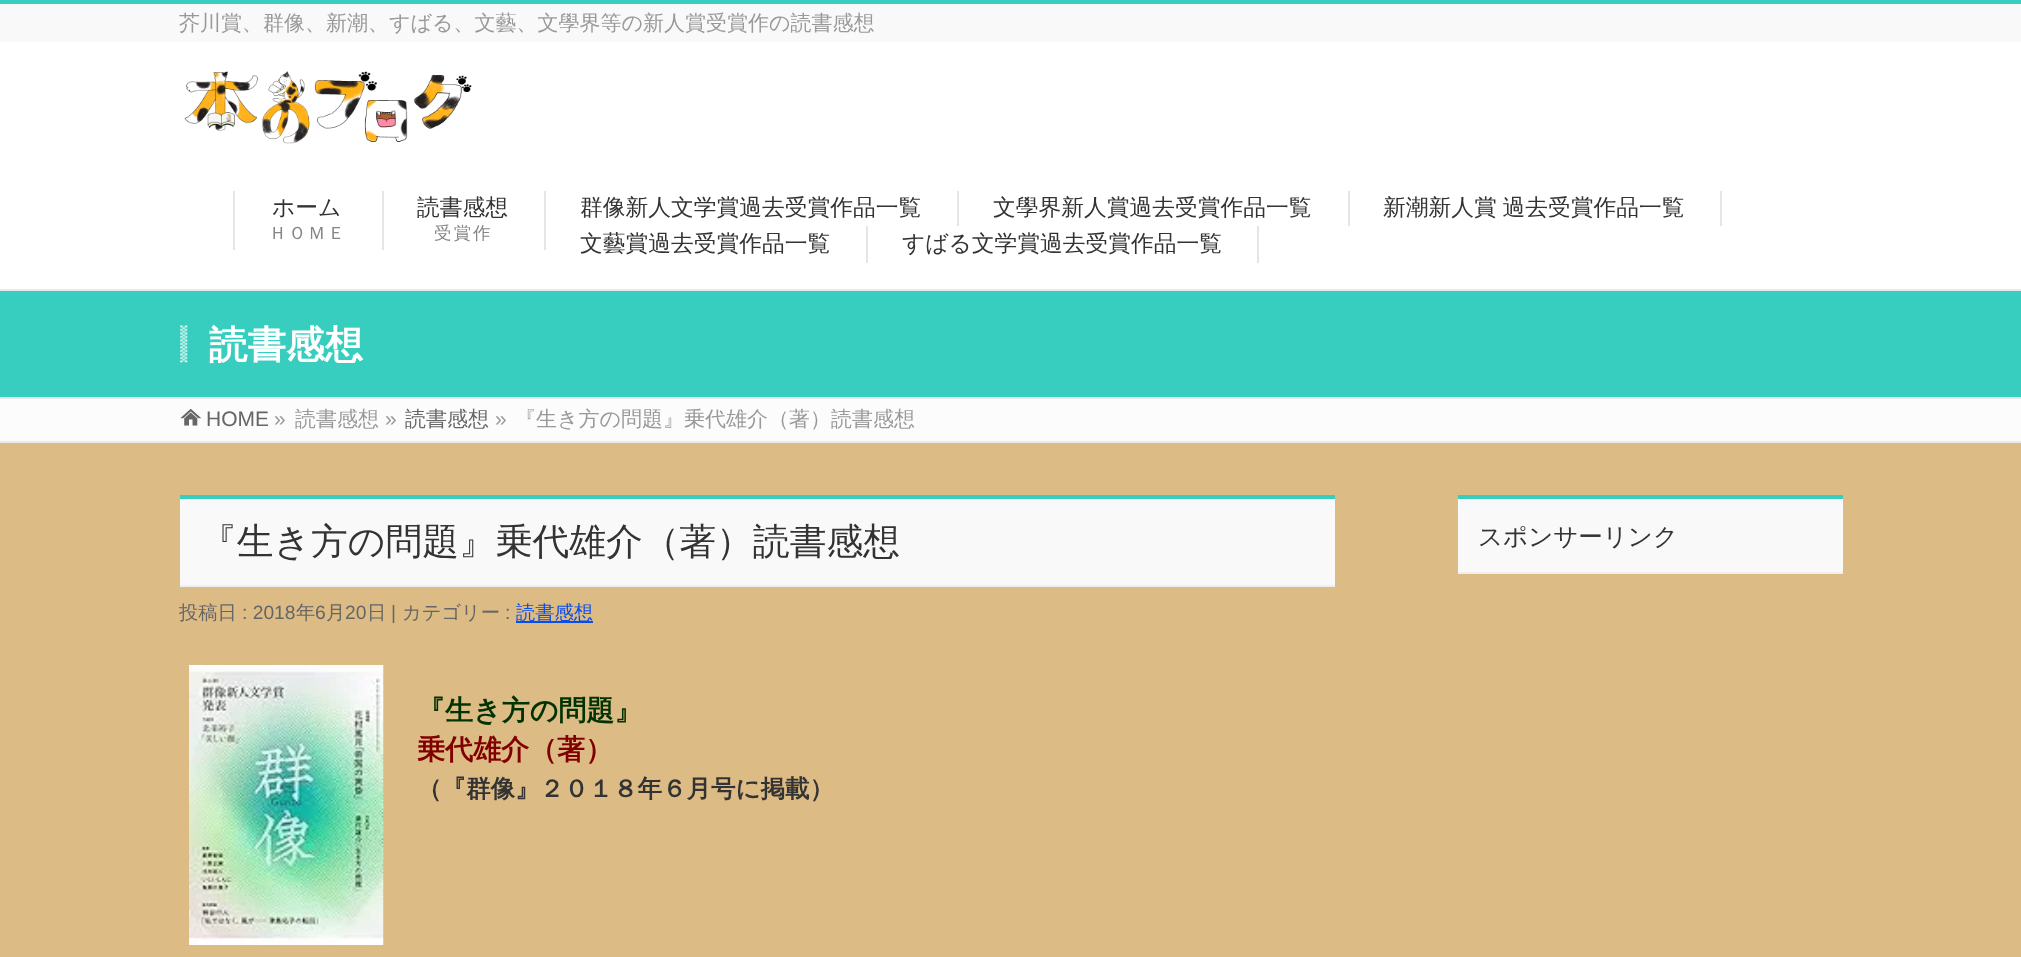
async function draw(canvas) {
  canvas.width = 2021;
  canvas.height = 957;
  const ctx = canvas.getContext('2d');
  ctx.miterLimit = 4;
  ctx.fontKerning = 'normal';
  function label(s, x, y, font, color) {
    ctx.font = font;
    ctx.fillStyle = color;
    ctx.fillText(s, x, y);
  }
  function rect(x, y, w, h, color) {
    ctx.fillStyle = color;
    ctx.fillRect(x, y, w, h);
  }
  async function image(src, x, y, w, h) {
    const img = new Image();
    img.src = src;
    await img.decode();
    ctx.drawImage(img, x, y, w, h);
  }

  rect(0, 0, 2021, 957, '#ddbb85');
  rect(0, 4, 2021, 38, '#f9f9f9');
  rect(0, 0, 2021, 4, '#37cebf');
  label('芥川賞、群像、新潮、すばる、文藝、文學界等の新人賞受賞作の読書感想', 179, 30, '500 21px WenQuanYi Zen Hei', '#999');
  rect(0, 42, 2021, 247, '#fff');
  await image('assets/img1.png', 184, 71, 288, 73);
  rect(382, 191, 2, 59, '#e5e5e5');
  rect(233, 191, 2, 59, '#e5e5e5');
  label('ホーム', 272, 215, '500 22.75px WenQuanYi Zen Hei', '#333');
  ctx.letterSpacing = '2px';
  label('ＨＯＭＥ', 269, 239, '500 17.5px WenQuanYi Zen Hei', '#858585');
  rect(544, 191, 2, 59, '#e5e5e5');
  ctx.letterSpacing = '0px';
  label('読書感想', 417, 215, '500 22.75px WenQuanYi Zen Hei', '#333');
  ctx.letterSpacing = '2px';
  label('受賞作', 434, 239, '500 17.5px WenQuanYi Zen Hei', '#858585');
  rect(957, 191, 2, 35, '#e5e5e5');
  ctx.letterSpacing = '0px';
  label('群像新人文学賞過去受賞作品一覧', 580, 215, '500 22.75px WenQuanYi Zen Hei', '#333');
  rect(1348, 191, 2, 35, '#e5e5e5');
  label('文學界新人賞過去受賞作品一覧', 993, 215, '500 22.75px WenQuanYi Zen Hei', '#333');
  rect(1720, 191, 2, 35, '#e5e5e5');
  ctx.wordSpacing = '-1px';
  label('新潮新人賞 過去受賞作品一覧', 1383, 215, '500 22.75px WenQuanYi Zen Hei', '#333');
  rect(866, 226, 2, 37, '#e5e5e5');
  ctx.wordSpacing = '0px';
  label('文藝賞過去受賞作品一覧', 580, 251, '500 22.75px WenQuanYi Zen Hei', '#333');
  rect(1257, 226, 2, 37, '#e5e5e5');
  label('すばる文学賞過去受賞作品一覧', 902, 251, '500 22.75px WenQuanYi Zen Hei', '#333');
  rect(0, 291, 2021, 106, '#37cebf');
  rect(0, 289, 2021, 2, '#e9e9e9');
  rect(0, 397, 2021, 2, '#e9e9e9');
  await image('assets/img2.png', 180, 325, 8, 38);
  label('読書感想', 209, 358, 'bold 38.5px WenQuanYi Zen Hei', '#fff');
  rect(0, 399, 2021, 42, '#fcfcfc');
  await image('assets/img3.png', 180, 408, 22, 18);
  label('HOME', 206, 426, '21px Liberation Sans', '#666');
  label('»', 274, 426, '21px Liberation Sans', '#999');
  label('読書感想', 295, 426, '500 21px WenQuanYi Zen Hei', '#999');
  label('»', 385, 426, '21px Liberation Sans', '#999');
  label('読書感想', 405, 426, '500 21px WenQuanYi Zen Hei', '#666');
  label('»', 495, 426, '21px Liberation Sans', '#999');
  label('『生き方の問題』乗代雄介（著）読書感想', 515, 426, '500 21px WenQuanYi Zen Hei', '#999');
  rect(0, 441, 2021, 2, '#e9e9e9');
  rect(180, 499, 1155, 86, '#f9f9f9');
  rect(180, 495, 1155, 4, '#37cebf');
  rect(180, 585, 1155, 2, '#efefef');
  label('『生き方の問題』乗代雄介（著）読書感想', 200, 554, '500 36.75px WenQuanYi Zen Hei', '#333');
  label('投稿日', 179, 619, '500 19.25px WenQuanYi Zen Hei', '#666');
  label(': 2018', 242, 619, '19.25px Liberation Sans', '#666');
  label('年', 296, 619, '500 19.25px WenQuanYi Zen Hei', '#666');
  label('6', 315, 619, '19.25px Liberation Sans', '#666');
  label('月', 326, 619, '500 19.25px WenQuanYi Zen Hei', '#666');
  label('20', 345, 619, '19.25px Liberation Sans', '#666');
  label('日', 367, 619, '500 19.25px WenQuanYi Zen Hei', '#666');
  label('|', 391, 619, '19.25px Liberation Sans', '#666');
  label('カテゴリー', 402, 619, '500 19.25px WenQuanYi Zen Hei', '#666');
  label(':', 505, 619, '19.25px Liberation Sans', '#666');
  rect(516, 621, 77, 2, '#094ded');
  label('読書感想', 516, 619, '500 19.25px WenQuanYi Zen Hei', '#094ded');
  await image('assets/img4.png', 189, 665, 195, 280);
  label('『生き方の問題』', 417, 720, 'bold 28px WenQuanYi Zen Hei', '#030');
  label('乗代雄介（著）', 417, 759, 'bold 28px WenQuanYi Zen Hei', '#800000');
  label('（『群像』２０１８年６月号に掲載）', 417, 797, 'bold 24.5px WenQuanYi Zen Hei', '#333');
  rect(1458, 499, 385, 73, '#f9f9f9');
  rect(1458, 495, 385, 4, '#37cebf');
  rect(1458, 572, 385, 2, '#efefef');
  label('スポンサーリンク', 1478, 545, '500 24.5px WenQuanYi Zen Hei', '#333');
}

draw(document.querySelector('canvas'));
